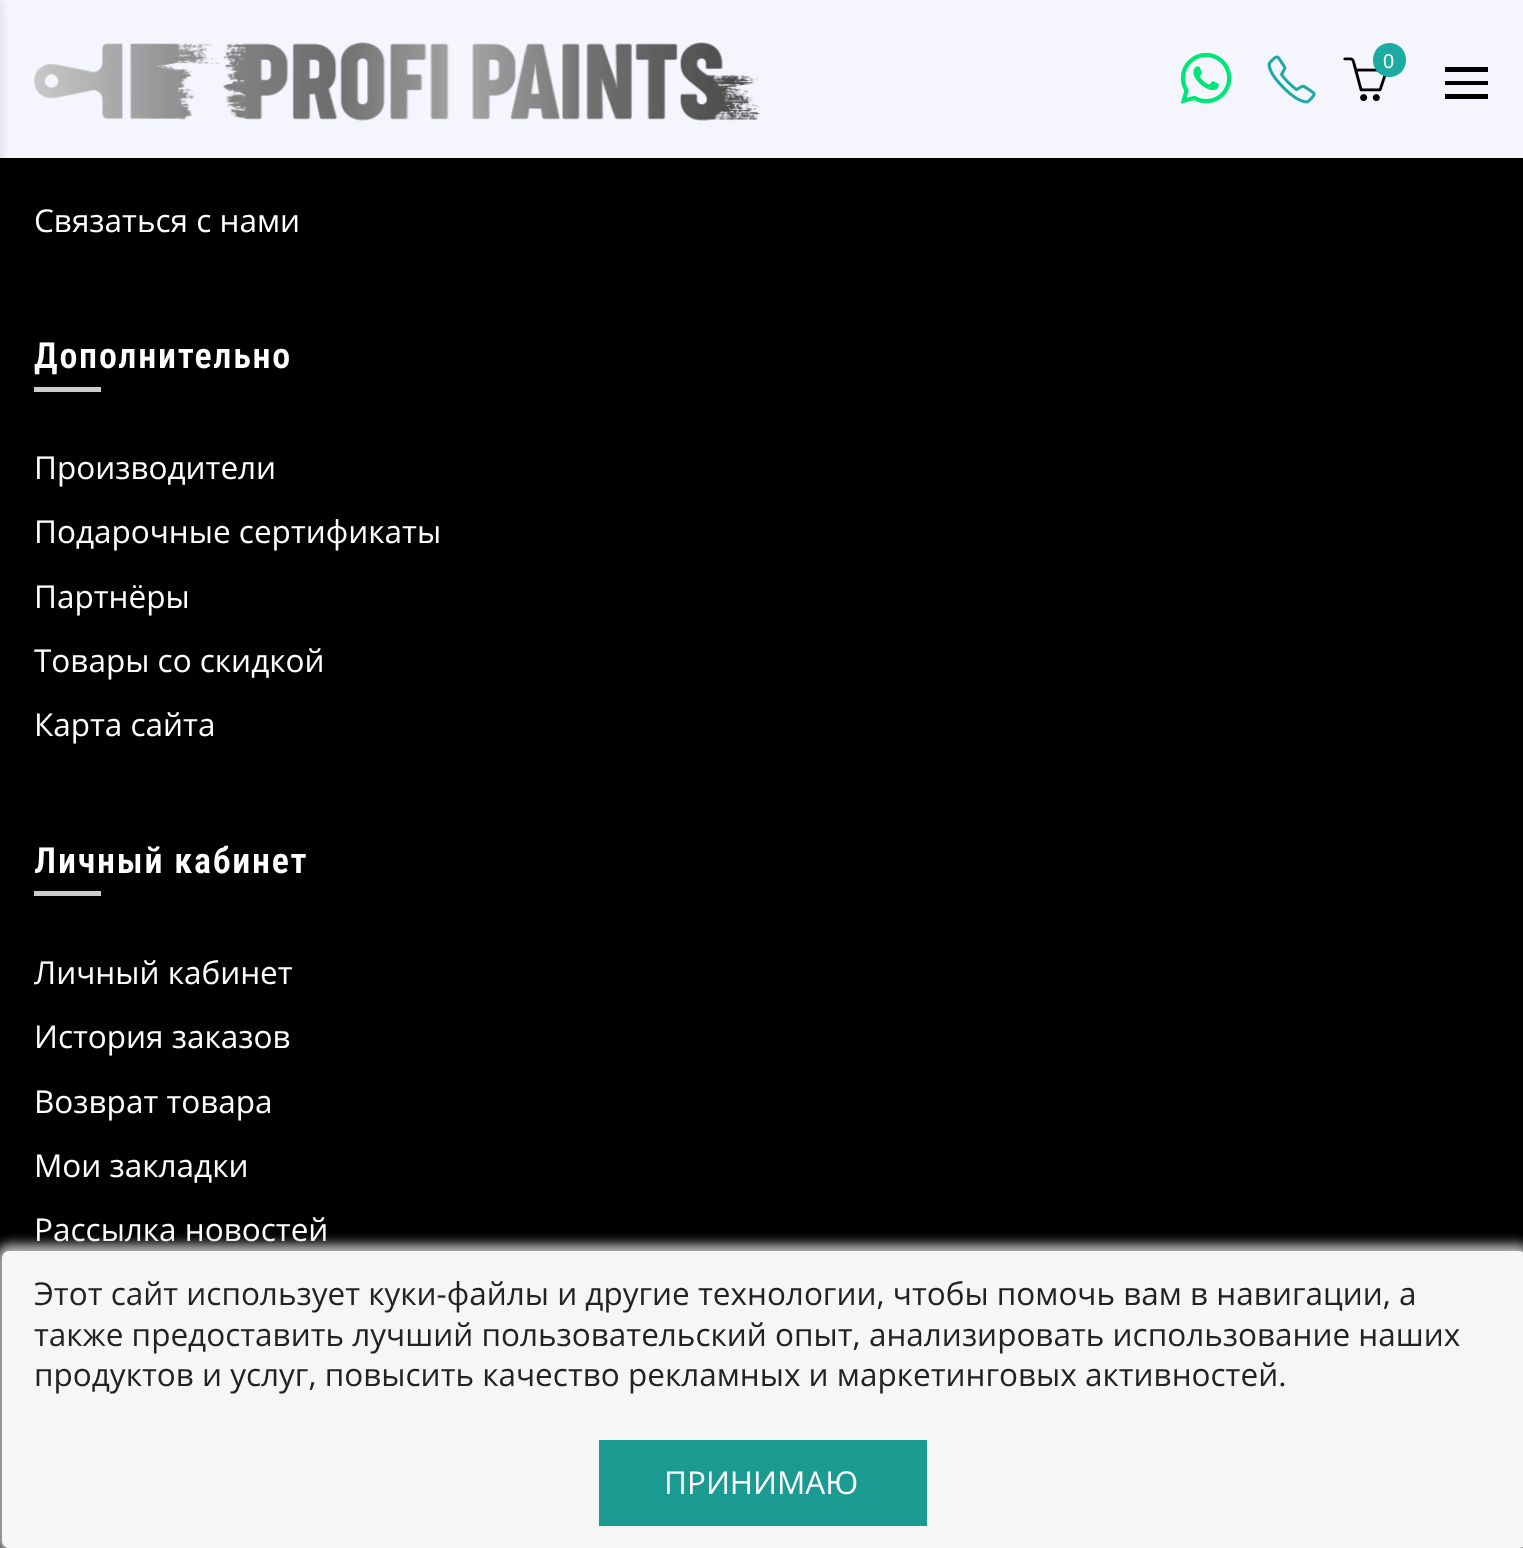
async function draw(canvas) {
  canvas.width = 1523;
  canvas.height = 1548;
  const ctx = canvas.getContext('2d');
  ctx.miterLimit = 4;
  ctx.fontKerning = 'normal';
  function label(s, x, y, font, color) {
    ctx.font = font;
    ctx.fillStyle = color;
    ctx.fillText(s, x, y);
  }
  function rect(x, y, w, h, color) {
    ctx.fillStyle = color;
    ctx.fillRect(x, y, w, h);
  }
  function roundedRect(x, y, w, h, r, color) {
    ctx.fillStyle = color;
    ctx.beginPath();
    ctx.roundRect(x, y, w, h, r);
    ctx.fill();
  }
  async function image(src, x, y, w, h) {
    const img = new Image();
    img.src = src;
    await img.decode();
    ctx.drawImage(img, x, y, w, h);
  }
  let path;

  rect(0, 0, 1523, 1548, '#000');
  rect(0, 0, 1523, 158, '#f4f5fd');
  ctx.fillStyle = '#00000021';
  ctx.filter = 'blur(5.5px)';
  ctx.beginPath();
  ctx.rect(-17, 2, 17, 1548);
  ctx.fill();
  ctx.filter = 'none';
  await image('assets/img1.png', 34, 42, 727, 79);
  await image('assets/img2.png', 1180, 52, 52, 52);
  await image('assets/img3.png', 1267, 55, 49, 49);
  await image('assets/img4.png', 1343, 57, 44, 45);
  roundedRect(1373, 43, 33, 34, 16.5, '#1daaa3');
  label('0', 1383, 68, '20px Liberation Sans', '#fff');
  ctx.fillStyle = '#000';
  path = new Path2D('M1445 69V72H1488V67H1445ZM1445 83V85H1488V81H1445ZM1445 96V99H1488V94H1445Z');
  ctx.fill(path);
  label('Связаться с нами', 34, 232, '31.5px Open Sans', '#fff');
  ctx.letterSpacing = '1.75px';
  label('Дополнительно', 34, 368, '600 36px Roboto Condensed', '#fff');
  rect(34, 387, 67, 5, '#ccc');
  ctx.letterSpacing = '0px';
  label('Производители', 34, 479, '31.5px Open Sans', '#fff');
  label('Подарочные сертификаты', 34, 543, '31.5px Open Sans', '#fff');
  label('Партнёры', 34, 608, '31.5px Open Sans', '#fff');
  label('Товары со скидкой', 34, 672, '31.5px Open Sans', '#fff');
  label('Карта сайта', 34, 736, '31.5px Open Sans', '#fff');
  ctx.letterSpacing = '1.75px';
  label('Личный кабинет', 34, 873, '600 36px Roboto Condensed', '#fff');
  rect(34, 891, 67, 5, '#ccc');
  ctx.letterSpacing = '0px';
  label('Личный кабинет', 34, 984, '31.5px Open Sans', '#fff');
  label('История заказов', 34, 1048, '31.5px Open Sans', '#fff');
  label('Возврат товара', 34, 1113, '31.5px Open Sans', '#fff');
  label('Мои закладки', 34, 1177, '31.5px Open Sans', '#fff');
  label('Рассылка новостей', 34, 1241, '31.5px Open Sans', '#fff');
  ctx.fillStyle = '#b6b6b6';
  ctx.filter = 'blur(5.5px)';
  ctx.beginPath();
  ctx.roundRect(-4, 1244, 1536, 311, 14);
  ctx.fill();
  ctx.filter = 'none';
  roundedRect(2, 1251, 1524, 297, 7, '#f6f6f6');
  label('Этот сайт использует куки-файлы и другие технологии, чтобы помочь вам в навигации, а', 34, 1305, '31.5px Open Sans', '#222');
  label('также предоставить лучший пользовательский опыт, анализировать использование наших', 34, 1346, '31.5px Open Sans', '#222');
  label('продуктов и услуг, повысить качество рекламных и маркетинговых активностей.', 34, 1386, '31.5px Open Sans', '#222');
  rect(599, 1440, 328, 86, '#1a9a90');
  label('ПРИНИМАЮ', 664, 1494, '31.5px Open Sans', '#fff');
}

draw(document.querySelector('canvas'));
